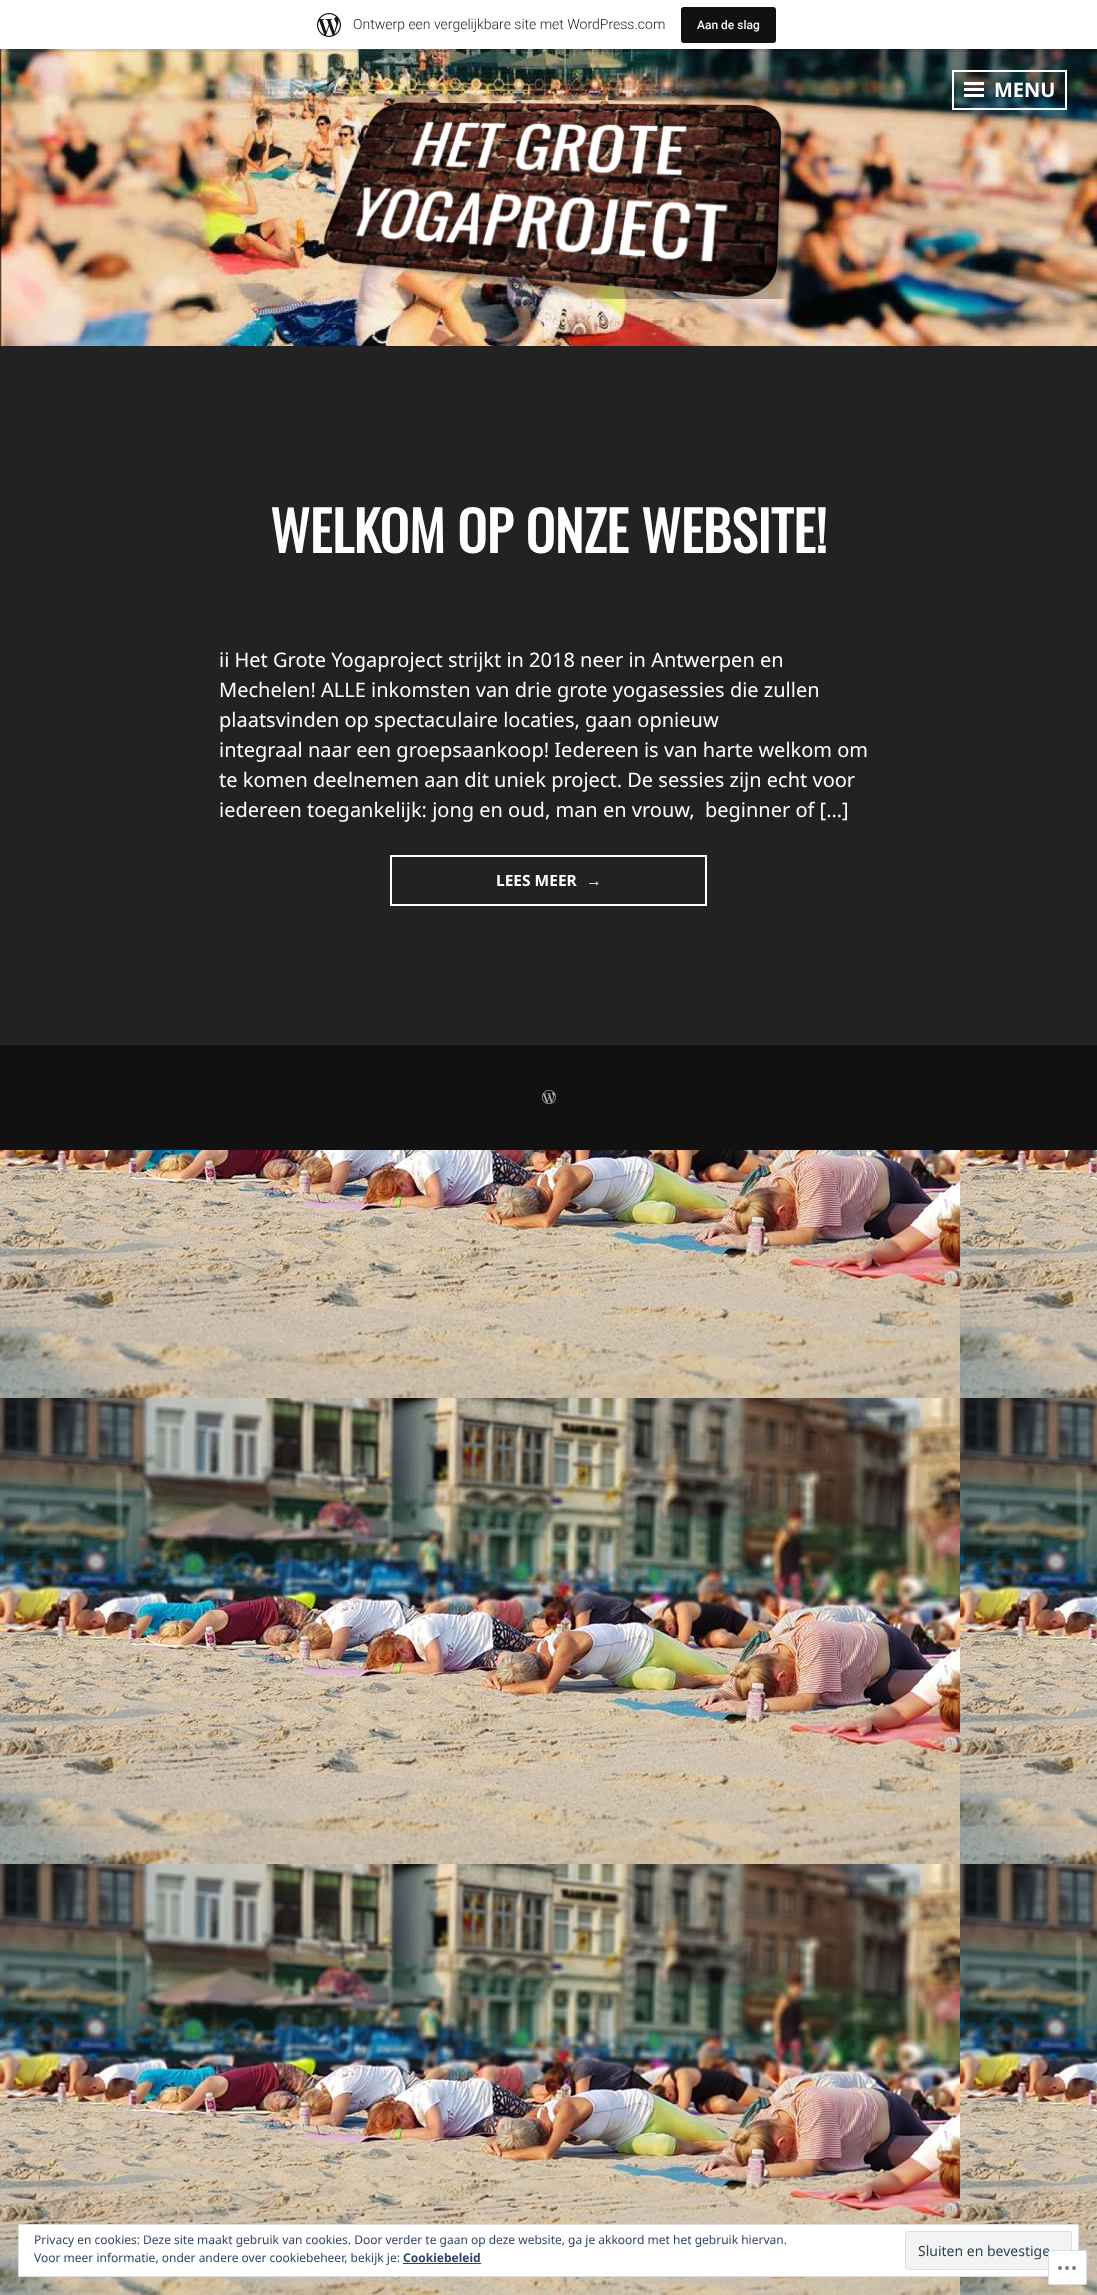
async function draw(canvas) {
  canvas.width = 1097;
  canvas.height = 2295;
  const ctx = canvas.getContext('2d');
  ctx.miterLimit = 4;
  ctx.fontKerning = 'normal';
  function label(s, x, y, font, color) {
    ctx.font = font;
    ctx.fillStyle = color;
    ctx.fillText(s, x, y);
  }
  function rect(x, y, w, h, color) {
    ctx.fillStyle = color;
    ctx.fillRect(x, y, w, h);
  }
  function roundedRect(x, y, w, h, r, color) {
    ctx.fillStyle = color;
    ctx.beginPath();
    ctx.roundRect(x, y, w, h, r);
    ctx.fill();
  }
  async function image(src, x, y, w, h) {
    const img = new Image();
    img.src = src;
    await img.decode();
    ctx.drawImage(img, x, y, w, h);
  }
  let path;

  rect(0, 0, 1097, 2295, '#fff');
  await image('assets/img1.png', 0, 1150, 1097, 1145);
  await image('assets/img3.png', 0, 49, 1097, 297);
  ctx.fillStyle = '#0000000d';
  ctx.filter = 'blur(1px)';
  ctx.beginPath();
  ctx.rect(0, 1, 1097, 49);
  ctx.fill();
  ctx.filter = 'none';
  ctx.fillStyle = '#00000014';
  path = new Path2D('M1 49V52H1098V3H1097V49Z');
  ctx.fill(path);
  rect(0, 0, 1097, 49, '#fff');
  await image('assets/img2.png', 317, 13, 24, 24);
  label('Ontwerp een vergelijkbare site met WordPress.com', 353, 29, '300 14px Roboto', '#171717');
  roundedRect(681, 7, 95, 36, 3, '#111');
  label('Aan de slag', 697, 29, '500 12px Roboto', '#f6f7f7');
  ctx.strokeStyle = '#fff';
  ctx.lineWidth = 2;
  ctx.strokeRect(953, 71, 113, 38);
  rect(964, 88, 20, 3, '#fff');
  rect(964, 82, 20, 3, '#fff');
  rect(964, 94, 20, 3, '#fff');
  label('MENU', 994, 97, 'bold 20px Noto Sans', '#fff');
  await image('assets/img4.png', 323, 102, 466, 197);
  rect(0, 346, 1097, 698, '#222');
  rect(0, 1044, 1097, 1, '#252525');
  label('WELKOM OP ONZE WEBSITE!', 270, 553, 'bold 54.5px Oswald', '#fff');
  label('ii Het Grote Yogaproject strijkt in 2018 neer in Antwerpen en', 219, 667, '20px Noto Sans', '#fff');
  label('Mechelen! ALLE inkomsten van drie grote yogasessies die zullen', 219, 697, '20px Noto Sans', '#fff');
  label('plaatsvinden op spectaculaire locaties, gaan opnieuw', 219, 727, '20px Noto Sans', '#fff');
  label('integraal naar een groepsaankoop! Iedereen is van harte welkom om', 219, 757, '20px Noto Sans', '#fff');
  label('te komen deelnemen aan dit uniek project. De sessies zijn echt voor', 219, 787, '20px Noto Sans', '#fff');
  label('iedereen toegankelijk: jong en oud, man en vrouw,  beginner of […]', 219, 817, '20px Noto Sans', '#fff');
  ctx.strokeRect(391, 856, 315, 49);
  label('LEES MEER', 496, 886, 'bold 15.5px Noto Sans', '#fff');
  label('→', 586, 886, 'bold 15.5px Liberation Sans', '#fff');
  rect(0, 1045, 1097, 105, '#111');
  await image('assets/img5.png', 542, 1090, 14, 14);
  ctx.fillStyle = '#fff';
  ctx.beginPath();
  ctx.rect(18.5, 2224.5, 1060, 52);
  ctx.fill();
  ctx.strokeStyle = '#dedede';
  ctx.lineWidth = 1;
  ctx.stroke();
  label('Privacy en cookies: Deze site maakt gebruik van cookies. Door verder te gaan op deze website, ga je akkoord met het gebruik hiervan.', 34, 2244, '12px Noto Sans', '#2e4467');
  label('Voor meer informatie, onder andere over cookiebeheer, bekijk je:', 34, 2262, '12px Noto Sans', '#2e4467');
  label('Cookiebeleid', 403, 2262, 'bold 12px Noto Sans', '#2e4467');
  rect(403, 2263, 78, 1, '#2e4467');
  ctx.fillStyle = '#f3f3f3';
  ctx.beginPath();
  ctx.roundRect(905.5, 2231.5, 166, 38, 2.5);
  ctx.fill();
  ctx.stroke();
  label('Sluiten en bevestige', 918, 2256, '14px Noto Sans', '#2e4453');
  roundedRect(1048, 2250, 39, 35, 3, '#fffffffa');
  ctx.beginPath();
  ctx.roundRect(1048.5, 2250.5, 38, 34, 2.5);
  ctx.strokeStyle = '#dcdcdefa';
  ctx.stroke();
  await image('assets/img6.png', 1058, 2266, 18, 4);
}

draw(document.querySelector('canvas'));
